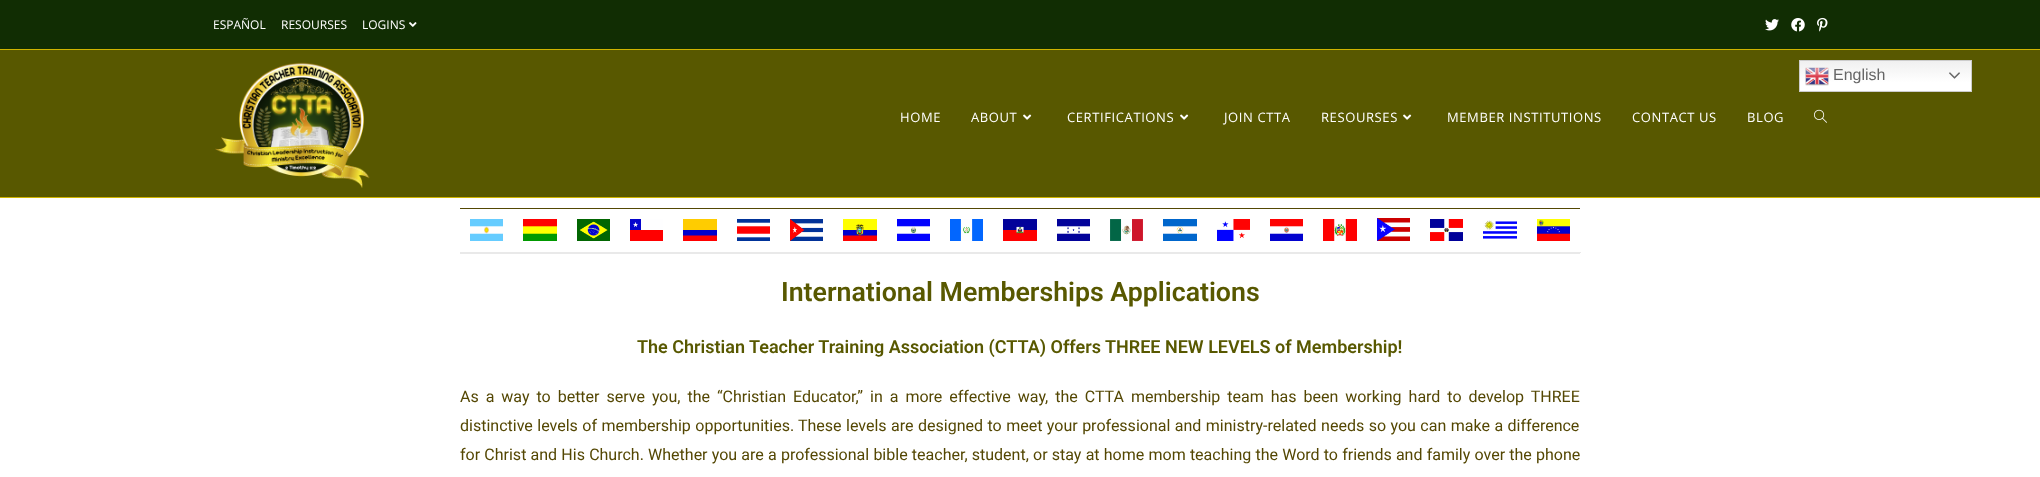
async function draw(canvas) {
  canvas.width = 2040;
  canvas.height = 477;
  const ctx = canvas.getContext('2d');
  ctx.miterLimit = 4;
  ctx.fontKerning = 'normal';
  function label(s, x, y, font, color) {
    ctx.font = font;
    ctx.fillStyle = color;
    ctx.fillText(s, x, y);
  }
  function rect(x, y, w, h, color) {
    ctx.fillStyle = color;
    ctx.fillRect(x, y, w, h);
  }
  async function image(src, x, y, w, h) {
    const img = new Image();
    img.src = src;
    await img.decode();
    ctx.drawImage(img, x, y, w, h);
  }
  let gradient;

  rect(0, 0, 2040, 477, '#fff');
  rect(0, 0, 2040, 49, '#112d03');
  rect(0, 49, 2040, 1, '#cfb400');
  label('ESPAÑOL', 213, 29, '12px Open Sans', '#fff');
  label('RESOURSES', 281, 29, '12px Open Sans', '#fff');
  label('LOGINS', 362, 29, '12px Open Sans', '#fff');
  await image('assets/img1.png', 409, 22, 8, 5);
  await image('assets/img2.png', 1765, 19, 14, 12);
  await image('assets/img3.png', 1791, 18, 14, 14);
  await image('assets/img4.png', 1817, 17, 11, 15);
  rect(0, 50, 2040, 147, '#585800');
  rect(0, 197, 2040, 1, '#cfb400');
  await image('assets/img5.png', 215, 62, 155, 126);
  gradient = ctx.createLinearGradient(1886, 60, 1886, 92);
  gradient.addColorStop(0, '#efefef');
  gradient.addColorStop(0.7, '#fff');
  ctx.fillStyle = gradient;
  ctx.fillRect(1800, 61, 171, 30);
  ctx.strokeStyle = '#ccc';
  ctx.strokeRect(1799.5, 60.5, 172, 31);
  await image('assets/img6.png', 1805, 67, 24, 19);
  label('English', 1833, 80, '16px Liberation Sans', '#666');
  await image('assets/img7.png', 1949, 72, 11, 7);
  ctx.letterSpacing = '0.6px';
  label('HOME', 900, 122, '13px Open Sans', '#fff');
  label('ABOUT', 971, 122, '13px Open Sans', '#fff');
  await image('assets/img8.png', 1023, 114, 9, 6);
  label('CERTIFICATIONS', 1067, 122, '13px Open Sans', '#fff');
  await image('assets/img8.png', 1180, 114, 9, 6);
  label('JOIN CTTA', 1224, 122, '13px Open Sans', '#fff');
  label('RESOURSES', 1321, 122, '13px Open Sans', '#fff');
  await image('assets/img8.png', 1403, 114, 9, 6);
  label('MEMBER INSTITUTIONS', 1447, 122, '13px Open Sans', '#fff');
  label('CONTACT US', 1632, 122, '13px Open Sans', '#fff');
  label('BLOG', 1747, 122, '13px Open Sans', '#fff');
  await image('assets/img9.png', 1814, 109, 13, 14);
  rect(460, 208, 1120, 1, '#544703');
  await image('assets/img10.png', 1377, 218, 33, 23);
  rect(460, 252, 1121, 1, '#e9e9e9');
  await image('assets/img11.png', 1537, 219, 33, 22);
  await image('assets/img12.png', 470, 219, 33, 22);
  await image('assets/img13.png', 523, 219, 34, 22);
  await image('assets/img14.png', 577, 219, 33, 22);
  await image('assets/img15.png', 630, 219, 33, 22);
  await image('assets/img16.png', 683, 219, 34, 22);
  await image('assets/img17.png', 737, 219, 33, 22);
  await image('assets/img18.png', 790, 219, 33, 22);
  await image('assets/img19.png', 843, 219, 34, 22);
  await image('assets/img20.png', 897, 219, 33, 22);
  await image('assets/img21.png', 950, 219, 33, 22);
  await image('assets/img22.png', 1003, 219, 34, 22);
  await image('assets/img23.png', 1057, 219, 33, 22);
  await image('assets/img24.png', 1110, 219, 33, 22);
  await image('assets/img25.png', 1163, 219, 34, 22);
  await image('assets/img26.png', 1217, 219, 33, 22);
  await image('assets/img27.png', 1270, 219, 33, 22);
  await image('assets/img28.png', 1323, 219, 34, 22);
  await image('assets/img29.png', 1430, 219, 33, 22);
  await image('assets/img30.png', 1483, 220, 34, 19);
  rect(460, 253, 1120, 1, '#e9e9e9');
  ctx.letterSpacing = '0px';
  label('International Memberships Applications', 781, 301, '600 26.7px Roboto', '#585800');
  label('The Christian Teacher Training Association (CTTA) Offers THREE NEW LEVELS of Membership!', 637, 353, '600 18px Roboto', '#585800');
  ctx.wordSpacing = '3px';
  label('As a way to better serve you, the “Christian Educator,” in a more effective way, the CTTA membership team has been working hard to develop THREE', 460, 402, '16px Roboto', '#544703');
  ctx.wordSpacing = '0.5px';
  label('distinctive levels of membership opportunities.', 460, 431, '16px Roboto', '#544703');
  label('These levels are designed to meet your professional and ministry-related needs so you can make a difference', 798, 431, '16px Roboto', '#544703');
  ctx.wordSpacing = '0.25px';
  label('for Christ and His Church. Whether you are a professional bible teacher, student, or stay at home mom teaching the Word to friends and family over the phone', 460, 460, '16px Roboto', '#544703');
}

draw(document.querySelector('canvas'));
